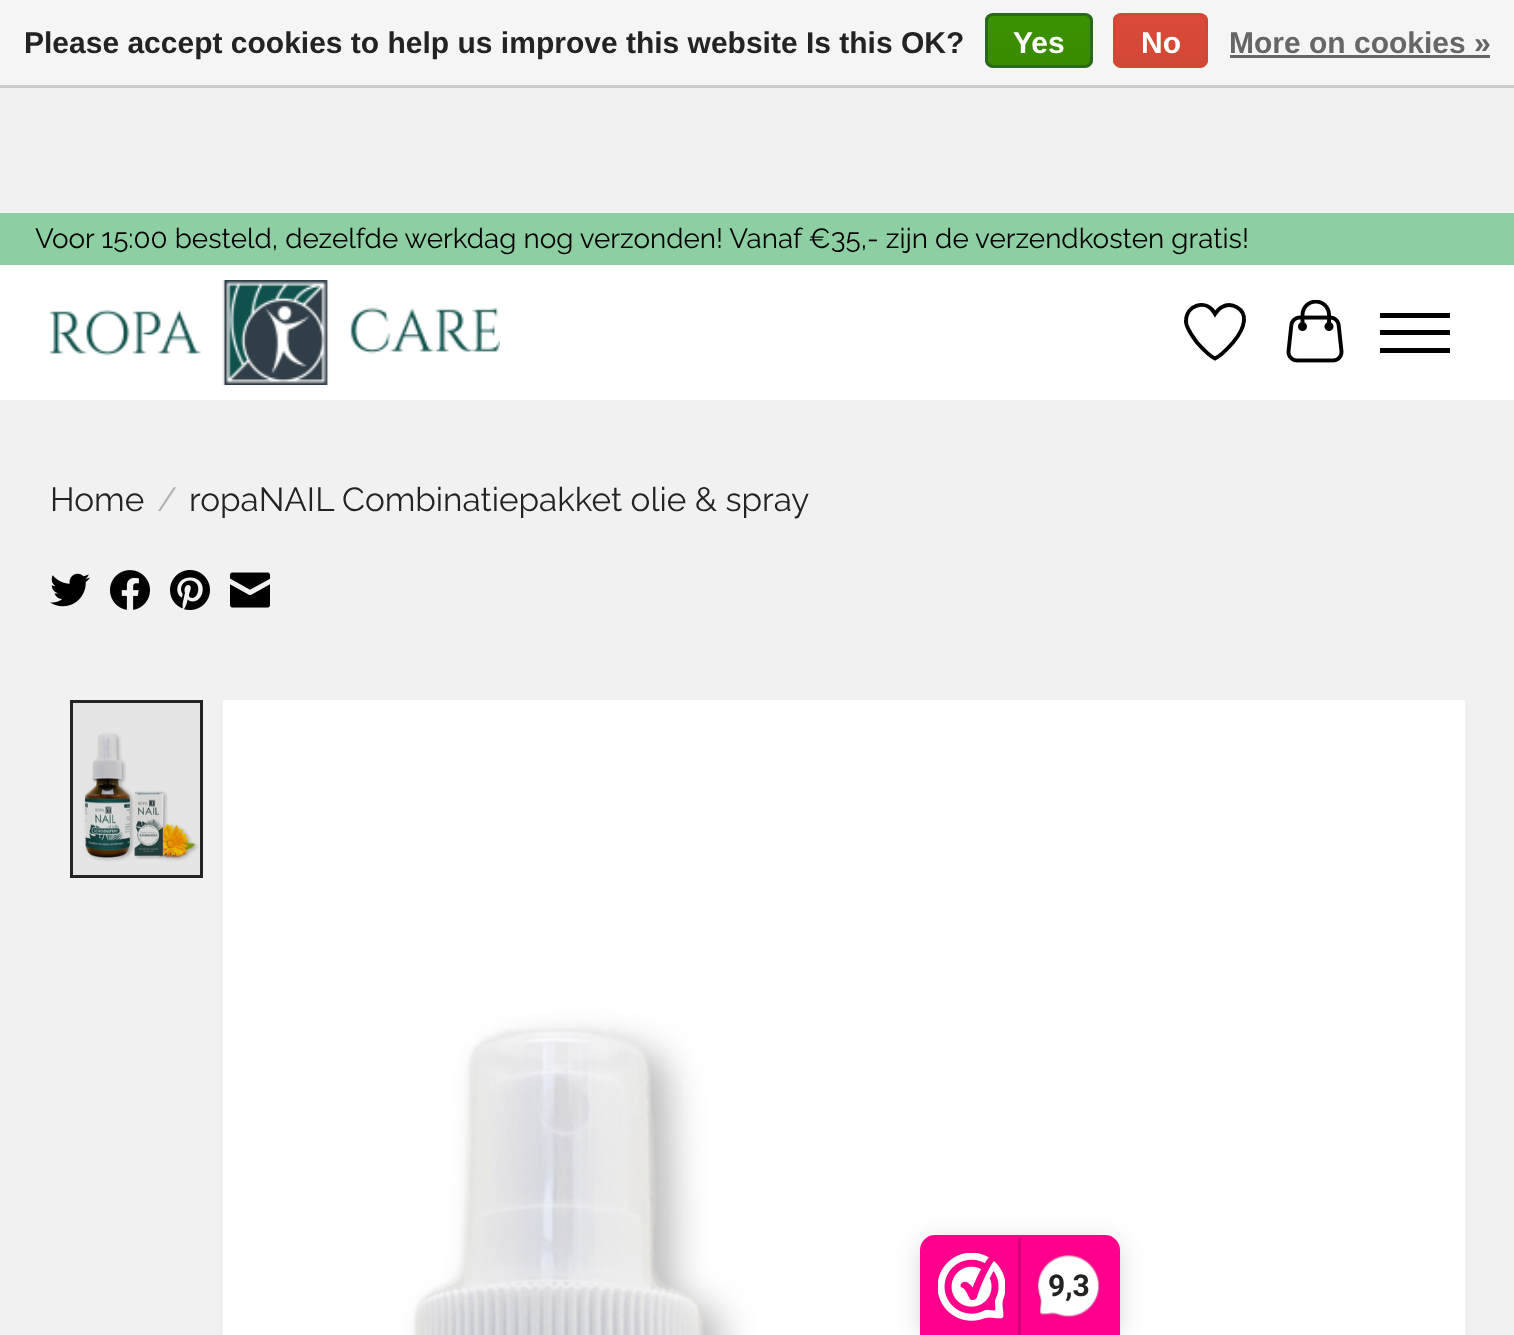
async function draw(canvas) {
  canvas.width = 1514;
  canvas.height = 1335;
  const ctx = canvas.getContext('2d');
  ctx.miterLimit = 4;
  ctx.fontKerning = 'normal';
  function label(s, x, y, font, color) {
    ctx.font = font;
    ctx.fillStyle = color;
    ctx.fillText(s, x, y);
  }
  function rect(x, y, w, h, color) {
    ctx.fillStyle = color;
    ctx.fillRect(x, y, w, h);
  }
  async function image(src, x, y, w, h) {
    const img = new Image();
    img.src = src;
    await img.decode();
    ctx.drawImage(img, x, y, w, h);
  }
  let gradient, path;

  rect(0, 0, 1514, 1335, '#f1f1f1');
  rect(0, 0, 1514, 85, '#f5f5f5');
  rect(0, 85, 1514, 3, '#ccc');
  label('Please accept cookies to help us improve this website Is this OK?', 24, 53, 'bold 30px Liberation Sans', '#232323');
  ctx.save();
  ctx.beginPath();
  ctx.roundRect(985, 13, 108, 55, 8);
  ctx.clip();
  gradient = ctx.createLinearGradient(1039, 15, 1039, 65);
  gradient.addColorStop(0, '#3c9300');
  gradient.addColorStop(1, '#398a00');
  ctx.fillStyle = gradient;
  ctx.fillRect(985, 15, 108, 50);
  ctx.restore();
  ctx.beginPath();
  ctx.roundRect(986.5, 14.5, 105, 52, 6.5);
  ctx.strokeStyle = '#29691d';
  ctx.lineWidth = 3;
  ctx.stroke();
  label('Yes', 1013, 53, 'bold 30px Liberation Sans', '#fff');
  ctx.save();
  ctx.beginPath();
  ctx.roundRect(1113, 13, 95, 55, 8);
  ctx.clip();
  gradient = ctx.createLinearGradient(1160, 15, 1160, 65);
  gradient.addColorStop(0, '#dc4a38');
  gradient.addColorStop(1, '#d14836');
  ctx.fillStyle = gradient;
  ctx.fillRect(1113, 15, 95, 50);
  ctx.restore();
  ctx.beginPath();
  ctx.roundRect(1114.5, 14.5, 92, 52, 6.5);
  ctx.strokeStyle = '#d14836';
  ctx.stroke();
  label('No', 1141, 53, 'bold 30px Liberation Sans', '#fff');
  label('More on cookies »', 1229, 53, 'bold 30px Liberation Sans', '#666');
  rect(1230, 55, 260, 3, '#666');
  rect(0, 265, 1514, 135, '#fff');
  rect(0, 213, 1514, 52, '#8dcea2');
  label('Voor 15:00 besteld, dezelfde werkdag nog verzonden! Vanaf €35,- zijn de verzendkosten gratis!', 35, 248, '27.8px Raleway', '#000');
  await image('assets/img1.png', 50, 280, 450, 105);
  path = new Path2D('M1213.5 311.5L1215 314C1217 311 1219 308.5 1222 307C1232 301.5 1245 309 1244 320.5C1243.5 328.5 1238 336.5 1233 342.5C1228.5 347.5 1221.5 355.5 1215 358.5C1208.5 355.5 1201.5 347.5 1197 342.5C1193 337 1185 327 1186 320C1187 305 1205 299.5 1213.5 311.5Z');
  ctx.strokeStyle = '#000';
  ctx.lineWidth = 3.9;
  ctx.stroke(path);
  await image('assets/img2.png', 1286, 300, 58, 63);
  rect(1380, 330, 70, 5, '#000');
  rect(1380, 313, 70, 5, '#000');
  rect(1380, 348, 70, 5, '#000');
  label('Home', 50, 511, '33.3px Raleway', '#232323');
  label('/', 157, 511, '33.3px Raleway', '#b3b3b3');
  label('ropaNAIL Combinatiepakket olie & spray', 189, 511, '33.3px Raleway', '#232323');
  await image('assets/img3.png', 50, 573, 40, 34);
  await image('assets/img4.png', 110, 570, 40, 40);
  await image('assets/img5.png', 170, 570, 40, 40);
  await image('assets/img6.png', 230, 572, 40, 36);
  await image('assets/img7.png', 73, 703, 127, 172);
  ctx.strokeStyle = '#232323';
  ctx.lineWidth = 3;
  ctx.strokeRect(71.5, 701.5, 130, 175);
  await image('assets/img8.png', 223, 700, 1242, 635);
  ctx.fillStyle = '#00000026';
  ctx.filter = 'blur(12.5px)';
  ctx.beginPath();
  ctx.roundRect(920, 1240, 200, 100, 15);
  ctx.fill();
  ctx.filter = 'none';
  ctx.fillStyle = '#fe008c';
  ctx.beginPath();
  ctx.roundRect(920, 1235, 200, 100, [15, 15, 0, 0]);
  ctx.fill();
  await image('assets/img9.png', 938, 1253, 67, 68);
  rect(1018, 1238, 3, 97, '#d80077');
  await image('assets/img10.png', 1037, 1255, 63, 63);
  label('9,3', 1048, 1296, 'bold 30px Roboto', '#232323');
}

draw(document.querySelector('canvas'));
